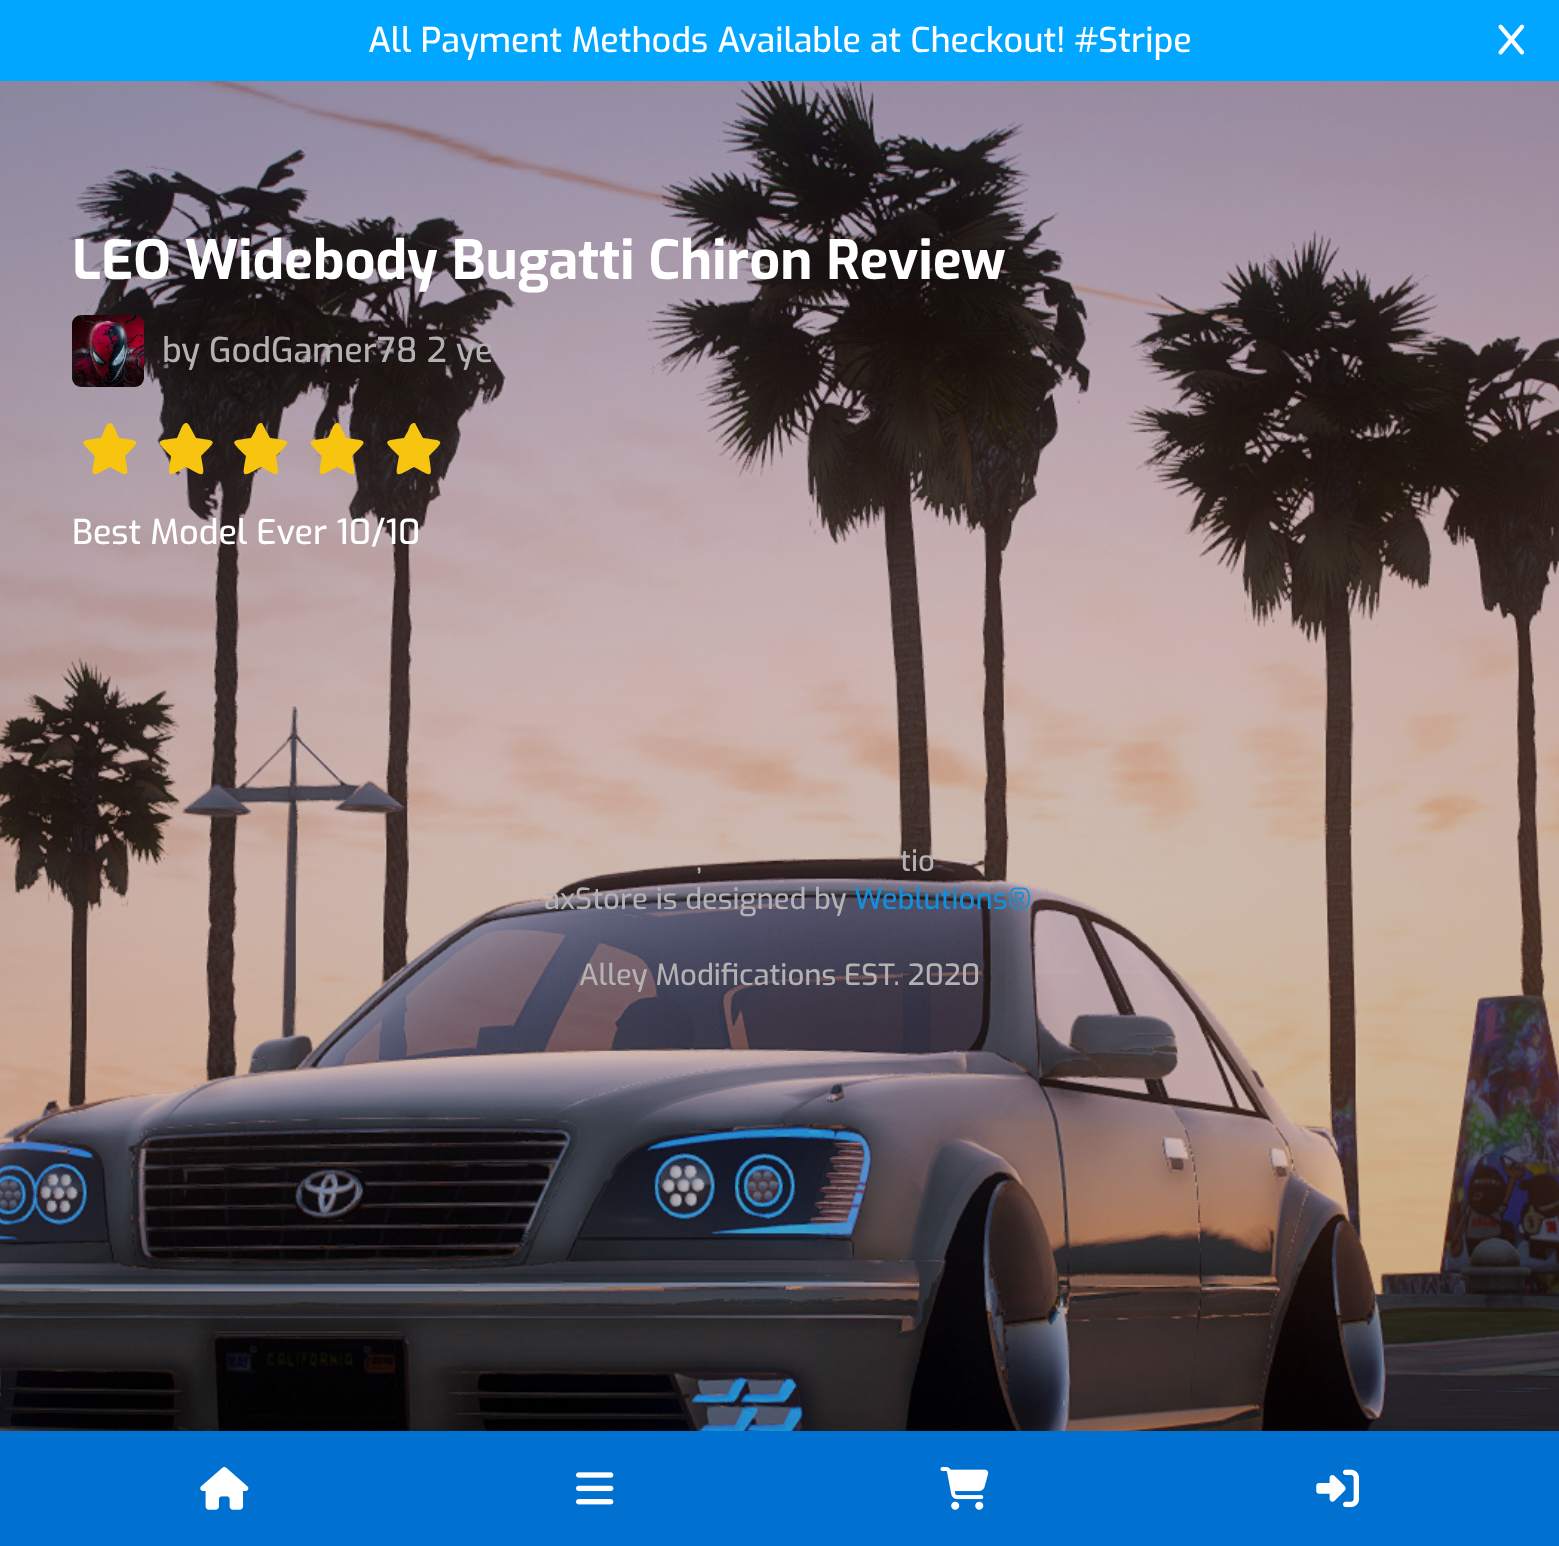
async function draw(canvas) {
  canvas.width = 1559;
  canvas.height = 1546;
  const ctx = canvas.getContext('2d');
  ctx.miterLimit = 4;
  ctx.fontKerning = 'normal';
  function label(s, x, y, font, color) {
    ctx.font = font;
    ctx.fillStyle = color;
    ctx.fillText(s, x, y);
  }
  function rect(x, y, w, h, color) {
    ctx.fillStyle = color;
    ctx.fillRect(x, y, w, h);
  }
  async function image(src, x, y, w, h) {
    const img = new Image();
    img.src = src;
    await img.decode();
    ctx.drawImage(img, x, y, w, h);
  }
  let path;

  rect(0, 0, 1559, 1546, '#fff');
  await image('assets/img1.png', 0, 81, 1559, 1350);
  rect(0, 0, 1559, 81, '#00a6ff');
  label('All Payment Methods Available at Checkout! #Stripe', 368, 52, '500 34.2px Exo', '#fff');
  await image('assets/img2.png', 1498, 24, 27, 31);
  label('LEO Widebody Bugatti Chiron Review', 72, 279, 'bold 54px Exo', '#fff');
  await image('assets/img3.png', 72, 315, 72, 72);
  label('by GodGamer78 2 ye', 162, 362, '500 34.2px Exo', '#b3b1b2');
  ctx.fillStyle = '#f7c510';
  path = new Path2D('M113 425L111 423C107 422 105 429 104 431L101 438C78 441 79 440 95 456C91 478 90 478 110 467C130 478 129 478 125 456C141 440 141 441 119 438Z');
  ctx.fill(path);
  path = new Path2D('M189 425L187 423C183 422 181 429 180 431L177 438C155 441 155 440 171 456C168 478 166 478 186 467C206 478 205 478 201 456C217 440 218 441 196 438Z');
  ctx.fill(path);
  path = new Path2D('M263 425L262 423C257 422 256 429 255 431L251 438C229 441 230 440 246 456C242 478 241 478 261 467C281 478 279 478 276 456C292 440 292 441 270 438Z');
  ctx.fill(path);
  path = new Path2D('M340 425L338 423C334 422 332 429 331 431L328 438C306 441 306 440 322 456C318 478 317 478 337 467C357 478 356 478 352 456C368 440 369 441 346 438Z');
  ctx.fill(path);
  path = new Path2D('M416 425L415 423C410 422 409 429 408 431L404 438C382 441 383 440 399 456C395 478 394 478 414 467C434 478 432 478 429 456C445 440 445 441 423 438Z');
  ctx.fill(path);
  label('Best Model Ever 10/10', 72, 544, '500 34.2px Exo', '#fff');
  label(',', 696, 871, '500 29.25px Exo', '#b3b1b2');
  label('tio', 900, 871, '500 29.25px Exo', '#b3b1b2');
  label('axStore is designed by', 544, 909, '500 29.25px Exo', '#b3b1b2');
  label('Weblutions®', 854, 909, '500 29.25px Exo', '#1290de');
  label('Alley Modifications EST. 2020', 579, 985, '500 29.25px Exo', '#b3b1b2');
  rect(0, 1431, 1559, 115, '#0171d1');
  await image('assets/img4.png', 200, 1467, 49, 43);
  await image('assets/img5.png', 576, 1472, 38, 33);
  await image('assets/img6.png', 940, 1467, 49, 43);
  await image('assets/img7.png', 1316, 1469, 43, 39);
}

draw(document.querySelector('canvas'));
